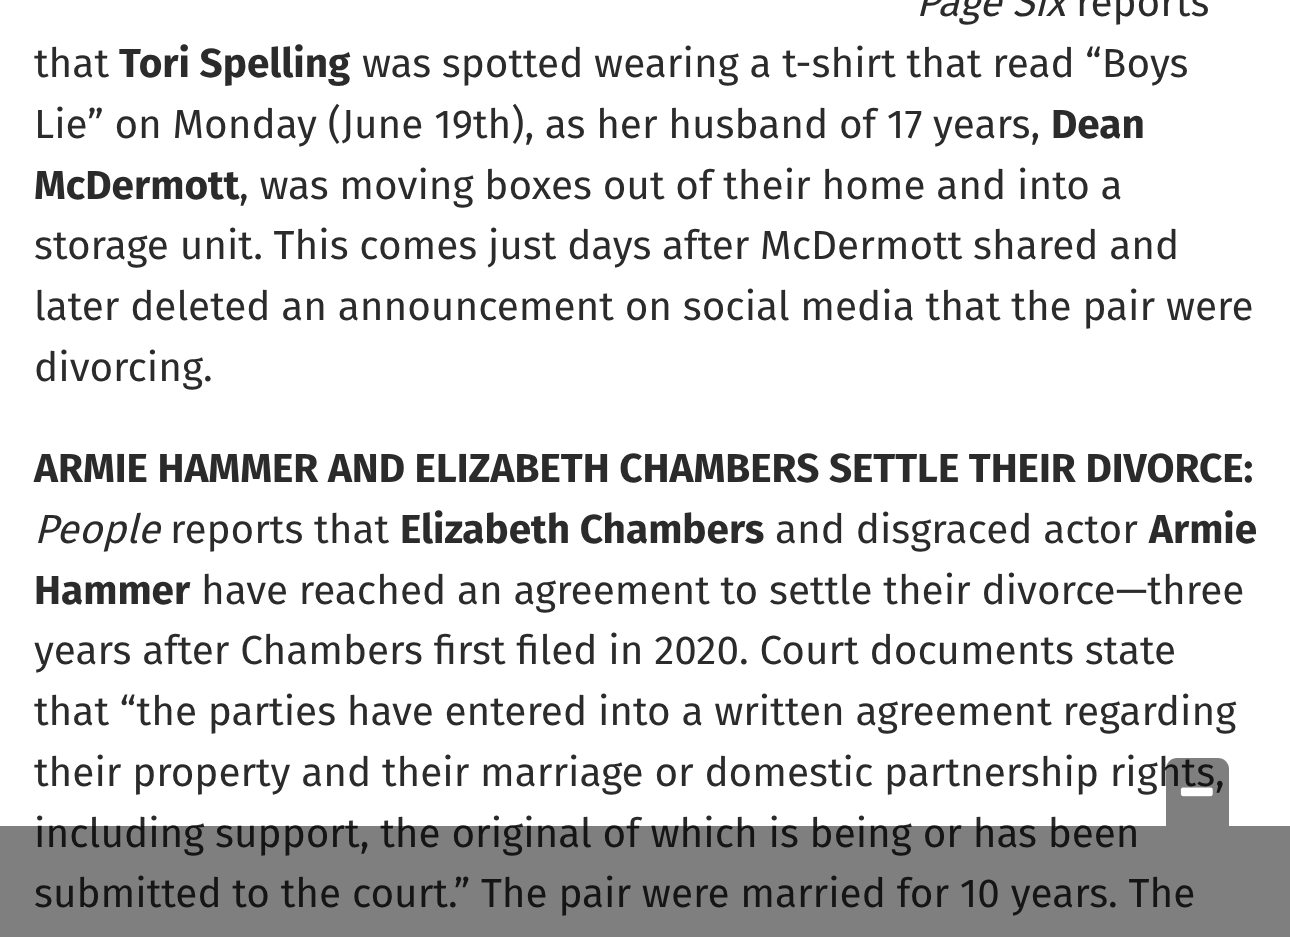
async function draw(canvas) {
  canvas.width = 1290;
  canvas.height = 937;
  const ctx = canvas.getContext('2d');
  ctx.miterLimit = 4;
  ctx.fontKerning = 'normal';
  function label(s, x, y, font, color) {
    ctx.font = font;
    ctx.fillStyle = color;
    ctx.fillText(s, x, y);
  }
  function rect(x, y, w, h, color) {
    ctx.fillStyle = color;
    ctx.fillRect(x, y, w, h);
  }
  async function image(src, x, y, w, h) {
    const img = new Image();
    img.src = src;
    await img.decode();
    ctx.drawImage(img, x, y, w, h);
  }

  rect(0, 0, 1290, 937, '#fff');
  label('Page Six', 916, 16, 'italic 40.5px Fira Sans', '#2b2b2b');
  label('reports', 1076, 16, '40.5px Fira Sans', '#2b2b2b');
  label('that', 34, 77, '40.5px Fira Sans', '#2b2b2b');
  label('Tori Spelling', 119, 77, 'bold 40.5px Fira Sans', '#2b2b2b');
  label('was spotted wearing a t-shirt that read “Boys', 362, 77, '40.5px Fira Sans', '#2b2b2b');
  label('Lie” on Monday (June 19th), as her husband of 17 years,', 34, 138, '40.5px Fira Sans', '#2b2b2b');
  label('Dean', 1051, 138, 'bold 40.5px Fira Sans', '#2b2b2b');
  label('McDermott', 34, 199, 'bold 40.5px Fira Sans', '#2b2b2b');
  label(', was moving boxes out of their home and into a', 239, 199, '40.5px Fira Sans', '#2b2b2b');
  label('storage unit. This comes just days after McDermott shared and', 34, 259, '40.5px Fira Sans', '#2b2b2b');
  label('later deleted an announcement on social media that the pair were', 34, 320, '40.5px Fira Sans', '#2b2b2b');
  label('divorcing.', 34, 381, '40.5px Fira Sans', '#2b2b2b');
  label('ARMIE HAMMER AND ELIZABETH CHAMBERS SETTLE THEIR DIVORCE:', 34, 482, 'bold 40.5px Fira Sans', '#2b2b2b');
  label('People', 34, 543, 'italic 40.5px Fira Sans', '#2b2b2b');
  label('reports that', 170, 543, '40.5px Fira Sans', '#2b2b2b');
  label('Elizabeth Chambers', 400, 543, 'bold 40.5px Fira Sans', '#2b2b2b');
  label('and disgraced actor', 775, 543, '40.5px Fira Sans', '#2b2b2b');
  label('Armie', 1149, 543, 'bold 40.5px Fira Sans', '#2b2b2b');
  label('Hammer', 34, 604, 'bold 40.5px Fira Sans', '#2b2b2b');
  label('have reached an agreement to settle their divorce—three', 201, 604, '40.5px Fira Sans', '#2b2b2b');
  label('years after Chambers first filed in 2020. Court documents state', 34, 664, '40.5px Fira Sans', '#2b2b2b');
  label('that “the parties have entered into a written agreement regarding', 34, 725, '40.5px Fira Sans', '#2b2b2b');
  label('their property and their marriage or domestic partnership rights,', 34, 786, '40.5px Fira Sans', '#2b2b2b');
  label('including support, the original of which is being or has been', 34, 847, '40.5px Fira Sans', '#2b2b2b');
  label('submitted to the court.” The pair were married for 10 years. The', 34, 907, '40.5px Fira Sans', '#2b2b2b');
  rect(0, 826, 1290, 111, '#00000080');
  ctx.beginPath();
  ctx.roundRect(1166, 758, 63, 68, [11, 11, 0, 0]);
  ctx.fill();
  await image('assets/img1.png', 1180, 787, 33, 10);
}

draw(document.querySelector('canvas'));
